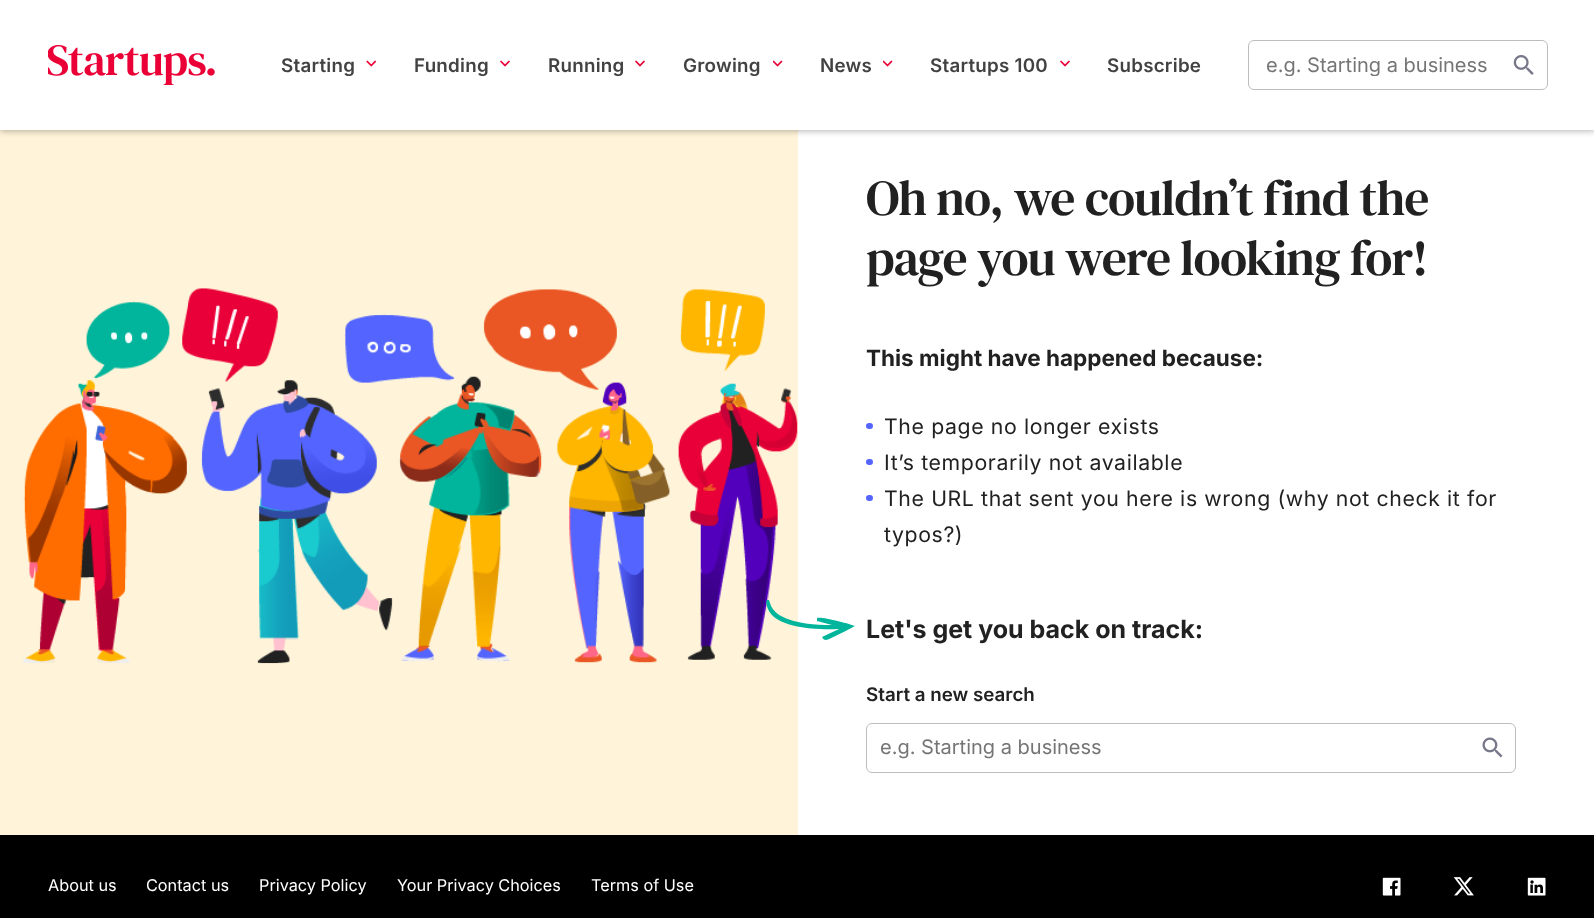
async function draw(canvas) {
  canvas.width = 1594;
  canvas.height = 918;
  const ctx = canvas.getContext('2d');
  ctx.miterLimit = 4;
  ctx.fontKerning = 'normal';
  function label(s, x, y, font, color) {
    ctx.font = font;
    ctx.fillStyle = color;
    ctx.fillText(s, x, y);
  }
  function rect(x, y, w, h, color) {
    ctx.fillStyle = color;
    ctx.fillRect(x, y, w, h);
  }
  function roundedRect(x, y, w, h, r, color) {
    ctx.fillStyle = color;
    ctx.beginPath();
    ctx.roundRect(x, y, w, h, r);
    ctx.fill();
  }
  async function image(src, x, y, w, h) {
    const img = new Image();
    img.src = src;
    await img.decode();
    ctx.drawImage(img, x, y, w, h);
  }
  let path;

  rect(0, 0, 1594, 918, '#fff');
  rect(0, 130, 798, 705, '#fff4d9');
  ctx.fillStyle = '#0000004d';
  ctx.filter = 'blur(3px)';
  ctx.beginPath();
  ctx.rect(0, 1, 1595, 130);
  ctx.fill();
  ctx.filter = 'none';
  rect(0, 0, 1594, 130, '#fff');
  await image('assets/img1.png', 48, 45, 167, 40);
  ctx.letterSpacing = '0.25px';
  label('Starting', 281, 72, '600 18.75px Inter', '#424242');
  await image('assets/img2.png', 366, 60, 10, 7);
  label('Funding', 414, 72, '600 18.75px Inter', '#424242');
  await image('assets/img3.png', 500, 60, 10, 7);
  label('Running', 548, 72, '600 18.75px Inter', '#424242');
  await image('assets/img3.png', 635, 60, 10, 7);
  label('Growing', 683, 72, '600 18.75px Inter', '#424242');
  await image('assets/img4.png', 773, 60, 10, 7);
  label('News', 820, 72, '600 18.75px Inter', '#424242');
  await image('assets/img4.png', 883, 60, 10, 7);
  label('Startups 100', 930, 72, '600 18.75px Inter', '#424242');
  await image('assets/img3.png', 1060, 60, 10, 7);
  label('Subscribe', 1107, 72, '600 18.75px Inter', '#424242');
  ctx.beginPath();
  ctx.roundRect(1248.5, 40.5, 299, 49, 5.5);
  ctx.strokeStyle = '#bdbdbd';
  ctx.stroke();
  ctx.save();
  ctx.beginPath();
  ctx.rect(1266, 51, 238, 25);
  ctx.clip();
  ctx.letterSpacing = '0px';
  label('e.g. Starting a business', 1266, 72, '20px Inter', '#757575');
  ctx.restore();
  await image('assets/img5.png', 1513, 55, 21, 20);
  await image('assets/img6.png', 22, 288, 776, 376);
  ctx.letterSpacing = '-0.9px';
  label('Oh no, we couldn’t find the', 866, 215, '50px DM Serif Text', '#212121');
  label('page you were looking for!', 866, 275, '50px DM Serif Text', '#212121');
  ctx.letterSpacing = '0px';
  label('This might have happened because:', 866, 366, 'bold 22.5px Inter', '#212121');
  roundedRect(866, 423, 7, 6, 3, '#5465ff');
  ctx.letterSpacing = '0.62px';
  label('The page no longer exists', 884, 434, '21.25px Inter', '#212121');
  roundedRect(866, 459, 7, 6, 3, '#5465ff');
  label('It’s temporarily not available', 884, 470, '21.25px Inter', '#212121');
  roundedRect(866, 495, 7, 6, 3, '#5465ff');
  label('The URL that sent you here is wrong (why not check it for', 884, 506, '21.25px Inter', '#212121');
  label('typos?)', 884, 542, '21.25px Inter', '#212121');
  ctx.fillStyle = '#00b59b';
  path = new Path2D('M768 609C776 629 820 630 839 629L822 637C823 639 824 640 826 640C829 640 855 626 855 626C851 624 820 616 817 618V621L832 625C815 625 796 624 781 616C777 614 773 610 771 606L769 600C764 599 767 606 768 609Z');
  ctx.fill(path);
  ctx.letterSpacing = '0px';
  label('Let\'s get you back on track:', 866, 638, 'bold 25px Inter', '#212121');
  label('Start a new search', 866, 701, '600 18.75px Inter', '#212121');
  ctx.beginPath();
  ctx.roundRect(866.5, 723.5, 649, 49, 5.5);
  ctx.stroke();
  label('e.g. Starting a business', 880, 754, '20px Inter', '#757575');
  await image('assets/img7.png', 1482, 737, 21, 21);
  rect(0, 835, 1594, 83, '#000');
  label('About us', 48, 891, '16.25px Inter', '#fff');
  label('Contact us', 146, 891, '16.25px Inter', '#fff');
  label('Privacy Policy', 259, 891, '16.25px Inter', '#fff');
  label('Your Privacy Choices', 397, 891, '16.25px Inter', '#fff');
  label('Terms of Use', 591, 891, '16.25px Inter', '#fff');
  await image('assets/img8.png', 1382, 877, 19, 19);
  await image('assets/img9.png', 1453, 877, 21, 19);
  await image('assets/img10.png', 1527, 877, 19, 19);
}

draw(document.querySelector('canvas'));
